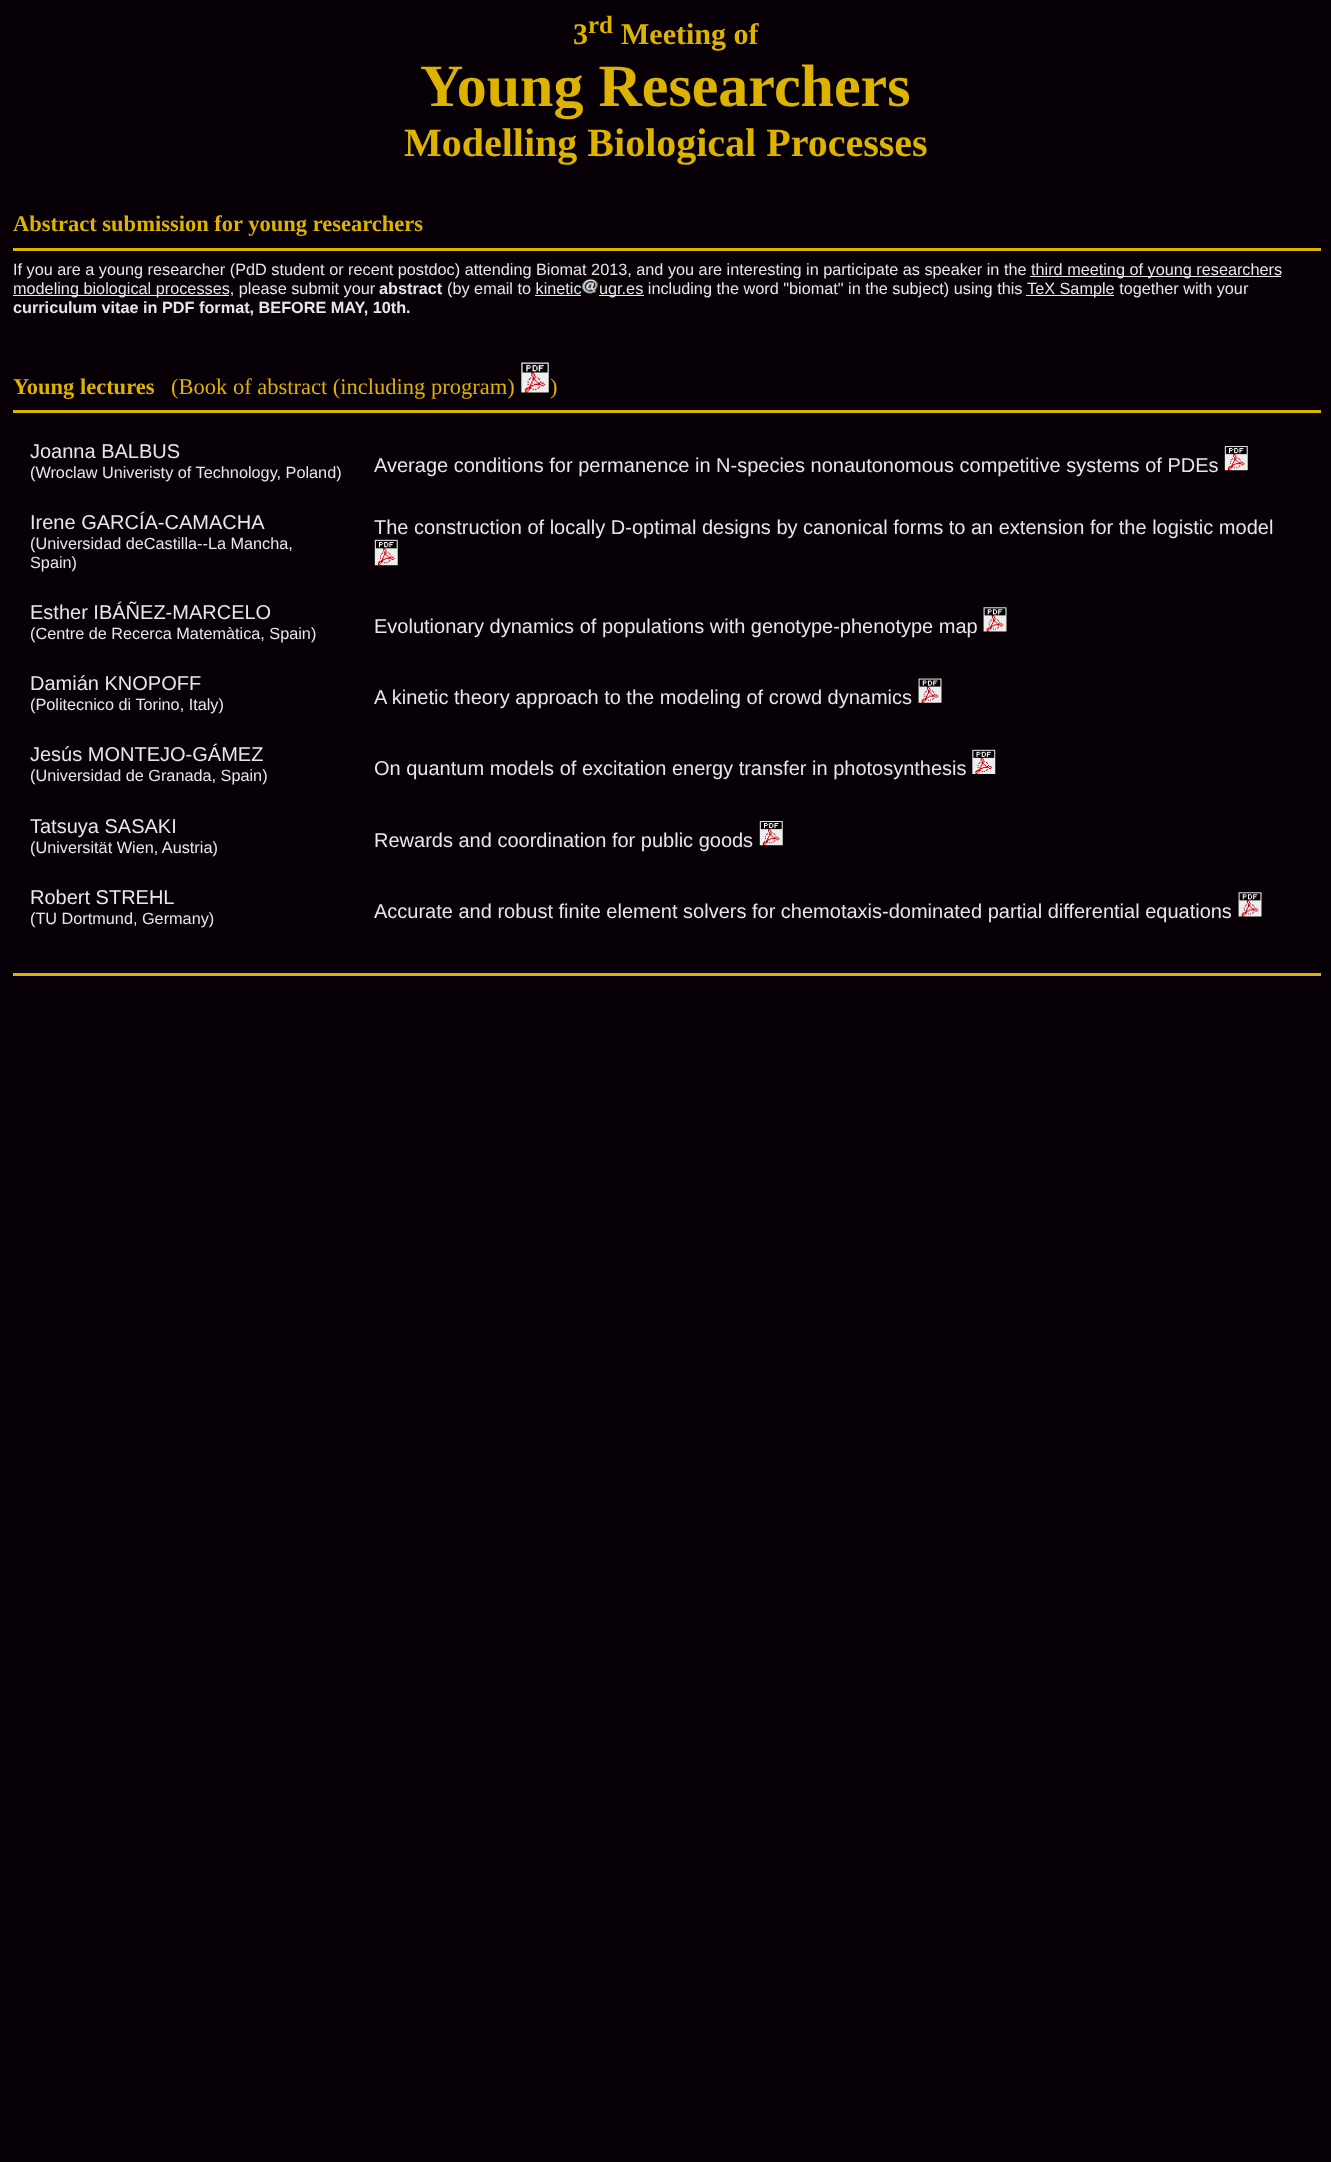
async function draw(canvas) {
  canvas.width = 1331;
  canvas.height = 2162;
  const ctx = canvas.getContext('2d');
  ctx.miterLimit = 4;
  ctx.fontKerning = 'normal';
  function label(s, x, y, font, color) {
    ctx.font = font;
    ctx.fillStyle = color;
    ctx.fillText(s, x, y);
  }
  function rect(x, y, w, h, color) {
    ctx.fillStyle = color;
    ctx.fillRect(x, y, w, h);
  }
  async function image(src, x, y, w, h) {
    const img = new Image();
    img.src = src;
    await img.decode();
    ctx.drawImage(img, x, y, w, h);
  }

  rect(0, 0, 1331, 2162, '#070007');
  label('3', 573, 44, 'bold 30px Liberation Serif', '#ddb300');
  label('rd', 588, 33, 'bold 25px Liberation Serif', '#ddb300');
  label('Meeting of', 621, 44, 'bold 30px Liberation Serif', '#ddb300');
  label('Young Researchers', 420, 106, 'bold 60px Liberation Serif', '#ddb300');
  label('Modelling Biological Processes', 404, 156, 'bold 40px Liberation Serif', '#ddb300');
  label('Abstract submission for young researchers', 13, 231, 'bold 22.5px Liberation Serif', '#ddb300');
  rect(13, 248, 1308, 3, '#ddb300');
  label('If you are a young researcher (PdD student or recent postdoc) attending Biomat 2013, and you are interesting in participate as speaker in the', 13, 275, '16.25px Liberation Sans', '#e7e7e7');
  rect(1030, 276, 251, 1, '#e7e7e7');
  label('third meeting of young researchers', 1031, 275, '16.25px Liberation Sans', '#e7e7e7');
  rect(13, 295, 216, 1, '#e7e7e7');
  label('modeling biological processes, please submit your', 13, 294, '16.25px Liberation Sans', '#e7e7e7');
  label('abstract', 379, 294, 'bold 16.25px Liberation Sans', '#e7e7e7');
  label('(by email to kinetic', 447, 294, '16.25px Liberation Sans', '#e7e7e7');
  rect(535, 295, 46, 1, '#e7e7e7');
  await image('assets/img1.png', 582, 278, 16, 16);
  rect(599, 295, 45, 1, '#e7e7e7');
  label('ugr.es including the word "biomat" in the subject) using this', 599, 294, '16.25px Liberation Sans', '#e7e7e7');
  rect(1026, 295, 88, 1, '#e7e7e7');
  label('TeX Sample together with your', 1027, 294, '16.25px Liberation Sans', '#e7e7e7');
  label('curriculum vitae in PDF format, BEFORE MAY, 10th.', 13, 313, 'bold 16.25px Liberation Sans', '#e7e7e7');
  label('Young lectures', 13, 394, 'bold 22.5px Liberation Serif', '#ddb300');
  label('(Book of abstract (including program)', 171, 394, '22.5px Liberation Serif', '#ddb300');
  await image('assets/img2.png', 520, 361, 30, 33);
  label(')', 550, 394, '22.5px Liberation Serif', '#ddb300');
  rect(13, 410, 1308, 3, '#ddb300');
  label('Joanna BALBUS', 30, 458, '20px Liberation Sans', '#e7e7e7');
  label('(Wroclaw Univeristy of Technology, Poland)', 30, 478, '16.25px Liberation Sans', '#e7e7e7');
  label('Average conditions for permanence in N-species nonautonomous competitive systems of PDEs', 374, 472, '20px Liberation Sans', '#e7e7e7');
  await image('assets/img3.png', 1224, 445, 25, 26);
  label('Irene GARCÍA-CAMACHA', 30, 529, '20px Liberation Sans', '#e7e7e7');
  label('(Universidad deCastilla--La Mancha,', 30, 549, '16.25px Liberation Sans', '#e7e7e7');
  label('Spain)', 30, 568, '16.25px Liberation Sans', '#e7e7e7');
  label('The construction of locally D-optimal designs by canonical forms to an extension for the logistic model', 374, 534, '20px Liberation Sans', '#e7e7e7');
  await image('assets/img4.png', 374, 539, 25, 27);
  label('Esther IBÁÑEZ-MARCELO', 30, 619, '20px Liberation Sans', '#e7e7e7');
  label('(Centre de Recerca Matemàtica, Spain)', 30, 639, '16.25px Liberation Sans', '#e7e7e7');
  label('Evolutionary dynamics of populations with genotype-phenotype map', 374, 633, '20px Liberation Sans', '#e7e7e7');
  await image('assets/img5.png', 983, 606, 24, 26);
  label('Damián KNOPOFF', 30, 690, '20px Liberation Sans', '#e7e7e7');
  label('(Politecnico di Torino, Italy)', 30, 710, '16.25px Liberation Sans', '#e7e7e7');
  label('A kinetic theory approach to the modeling of crowd dynamics', 374, 704, '20px Liberation Sans', '#e7e7e7');
  await image('assets/img6.png', 918, 678, 24, 26);
  label('Jesús MONTEJO-GÁMEZ', 30, 761, '20px Liberation Sans', '#e7e7e7');
  label('(Universidad de Granada, Spain)', 30, 781, '16.25px Liberation Sans', '#e7e7e7');
  label('On quantum models of excitation energy transfer in photosynthesis', 374, 775, '20px Liberation Sans', '#e7e7e7');
  await image('assets/img7.png', 971, 749, 25, 26);
  label('Tatsuya SASAKI', 30, 833, '20px Liberation Sans', '#e7e7e7');
  label('(Universität Wien, Austria)', 30, 853, '16.25px Liberation Sans', '#e7e7e7');
  label('Rewards and coordination for public goods', 374, 847, '20px Liberation Sans', '#e7e7e7');
  await image('assets/img3.png', 759, 820, 25, 26);
  label('Robert STREHL', 30, 904, '20px Liberation Sans', '#e7e7e7');
  label('(TU Dortmund, Germany)', 30, 924, '16.25px Liberation Sans', '#e7e7e7');
  label('Accurate and robust finite element solvers for chemotaxis-dominated partial differential equations', 374, 918, '20px Liberation Sans', '#e7e7e7');
  await image('assets/img5.png', 1238, 891, 24, 26);
  rect(13, 973, 1308, 3, '#ddb300');
}

draw(document.querySelector('canvas'));
